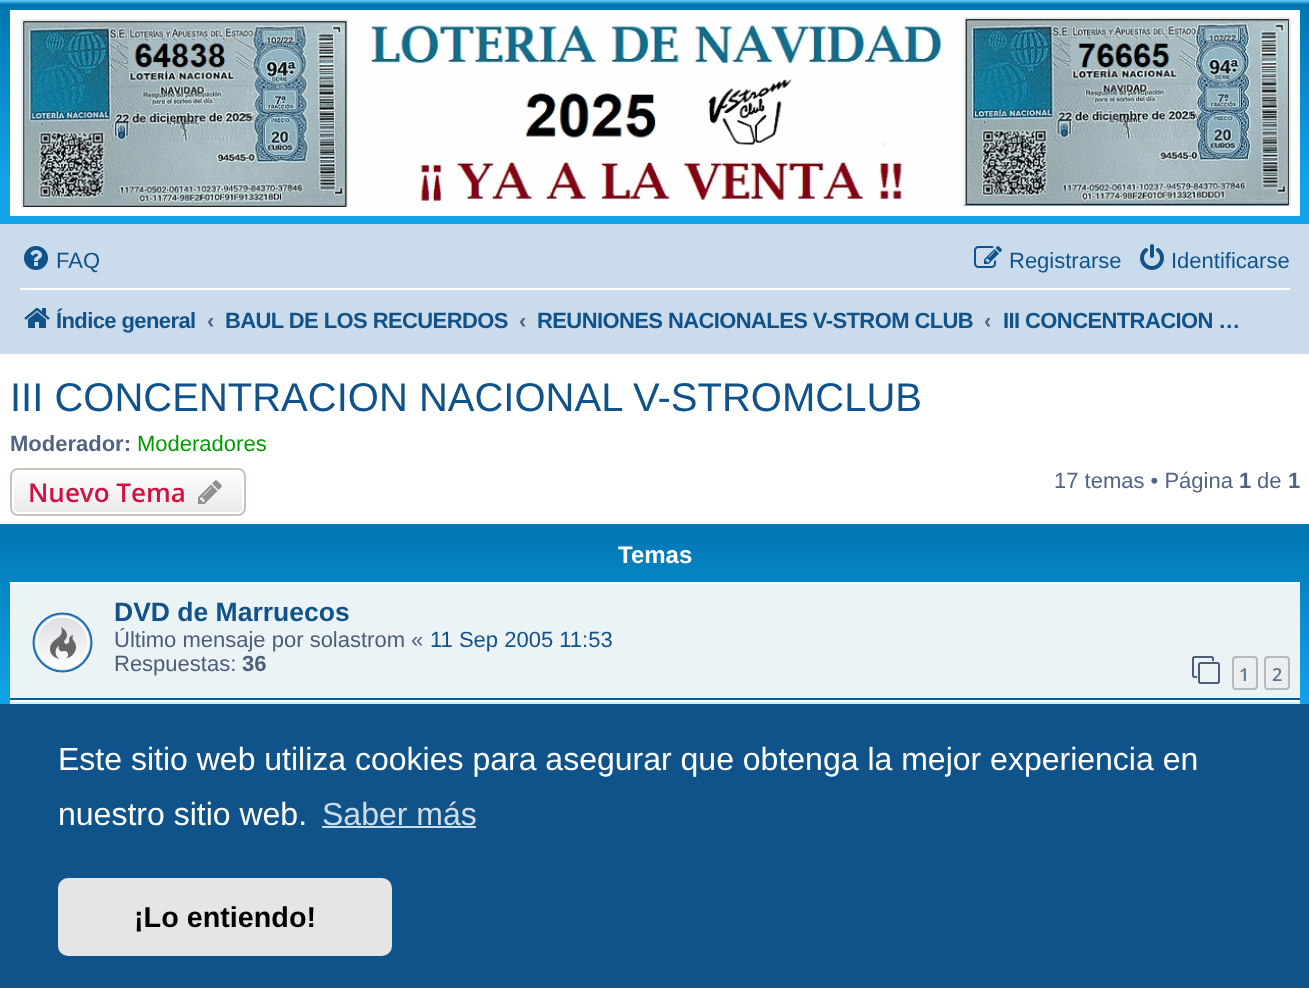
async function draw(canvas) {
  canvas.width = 1309;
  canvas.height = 988;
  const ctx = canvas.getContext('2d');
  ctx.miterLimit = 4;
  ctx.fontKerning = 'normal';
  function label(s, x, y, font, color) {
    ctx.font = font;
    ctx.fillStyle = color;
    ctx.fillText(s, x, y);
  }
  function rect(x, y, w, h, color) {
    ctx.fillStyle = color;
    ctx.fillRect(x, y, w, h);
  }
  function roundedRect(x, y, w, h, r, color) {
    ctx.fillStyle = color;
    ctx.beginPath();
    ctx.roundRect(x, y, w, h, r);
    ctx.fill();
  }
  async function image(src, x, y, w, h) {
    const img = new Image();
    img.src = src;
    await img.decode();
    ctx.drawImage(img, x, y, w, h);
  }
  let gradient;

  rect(0, 0, 1309, 988, '#fff');
  gradient = ctx.createLinearGradient(655, 0, 655, 226);
  gradient.addColorStop(0, '#6aceff');
  gradient.addColorStop(0.02, '#0076b1');
  gradient.addColorStop(0.81, '#12a3eb');
  gradient.addColorStop(1, '#12a3eb');
  ctx.fillStyle = gradient;
  ctx.fillRect(0, 0, 1309, 224);
  await image('assets/img1.png', 10, 10, 1290, 206);
  rect(0, 224, 1309, 130, '#cadceb');
  await image('assets/img2.png', 24, 246, 24, 24);
  label('FAQ', 56, 268, '22px Liberation Sans', '#105289');
  await image('assets/img3.png', 974, 246, 28, 22);
  label('Registrarse', 1009, 268, '22px Liberation Sans', '#105289');
  await image('assets/img4.png', 1140, 244, 24, 26);
  label('Identificarse', 1171, 268, '22px Liberation Sans', '#105289');
  rect(20, 288, 1270, 2, '#fff');
  await image('assets/img5.png', 24, 308, 26, 20);
  ctx.letterSpacing = '-0.6px';
  label('Índice general', 56, 328, 'bold 22px Liberation Sans', '#105289');
  ctx.letterSpacing = '0px';
  label('‹', 207, 328, 'bold 22px Liberation Sans', '#536482');
  ctx.letterSpacing = '-0.6px';
  label('BAUL DE LOS RECUERDOS', 225, 328, 'bold 22px Liberation Sans', '#105289');
  ctx.letterSpacing = '0px';
  label('‹', 519, 328, 'bold 22px Liberation Sans', '#536482');
  ctx.letterSpacing = '-0.6px';
  label('REUNIONES NACIONALES V-STROM CLUB', 537, 328, 'bold 22px Liberation Sans', '#105289');
  ctx.letterSpacing = '0px';
  label('‹', 984, 328, 'bold 22px Liberation Sans', '#536482');
  ctx.letterSpacing = '-0.6px';
  label('III CONCENTRACION …', 1003, 328, 'bold 22px Liberation Sans', '#105289');
  ctx.letterSpacing = '0px';
  label('III CONCENTRACION NACIONAL V-STROMCLUB', 10, 411, '40px Liberation Sans', '#105289');
  label('Moderador:', 10, 451, 'bold 22px Liberation Sans', '#536482');
  label('Moderadores', 137, 451, '22px Liberation Sans', '#090');
  ctx.save();
  ctx.beginPath();
  ctx.roundRect(10, 468, 236, 48, 8);
  ctx.clip();
  gradient = ctx.createLinearGradient(128, 470, 128, 514);
  gradient.addColorStop(0, '#fff');
  gradient.addColorStop(1, '#e9e9e9');
  ctx.fillStyle = gradient;
  ctx.fillRect(10, 470, 236, 44);
  ctx.restore();
  ctx.beginPath();
  ctx.roundRect(13, 471, 230, 42, 5);
  ctx.strokeStyle = '#fff';
  ctx.lineWidth = 2;
  ctx.stroke();
  ctx.beginPath();
  ctx.roundRect(11, 469, 234, 46, 7);
  ctx.strokeStyle = '#c7c3bf';
  ctx.stroke();
  label('Nuevo Tema', 28, 502, '600 26px Open Sans', '#d31141');
  await image('assets/img6.png', 198, 480, 24, 24);
  label('17 temas • Página', 1054, 488, '22px Liberation Sans', '#536482');
  label('1', 1239, 488, 'bold 22px Liberation Sans', '#536482');
  label('de', 1257, 488, '22px Liberation Sans', '#536482');
  label('1', 1288, 488, 'bold 22px Liberation Sans', '#536482');
  gradient = ctx.createLinearGradient(655, 524, 655, 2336);
  gradient.addColorStop(0, '#6aceff');
  gradient.addColorStop(0, '#0076b1');
  gradient.addColorStop(0.1, '#12a3eb');
  gradient.addColorStop(1, '#12a3eb');
  ctx.fillStyle = gradient;
  ctx.fillRect(0, 524, 1309, 180);
  label('Temas', 618, 563, 'bold 24px Liberation Sans', '#fff');
  rect(10, 584, 1290, 114, '#ecf3f7');
  rect(10, 582, 1290, 2, '#fff');
  rect(10, 698, 1290, 2, '#00608f');
  await image('assets/img7.png', 32, 612, 61, 61);
  label('DVD de Marruecos', 114, 621, 'bold 26.5px Liberation Sans', '#105289');
  label('Último mensaje por solastrom «', 114, 647, '22px Liberation Sans', '#4c5d77');
  label('11 Sep 2005 11:53', 430, 647, '22px Liberation Sans', '#105289');
  label('Respuestas:', 114, 671, '22px Liberation Sans', '#4c5d77');
  label('36', 242, 671, 'bold 22px Liberation Sans', '#4c5d77');
  await image('assets/img8.png', 1192, 656, 28, 28);
  ctx.fillStyle = '#ecedee';
  ctx.beginPath();
  ctx.roundRect(1233, 657, 24, 32, 3);
  ctx.fill();
  ctx.strokeStyle = '#b4bac0';
  ctx.stroke();
  label('1', 1239, 681, '600 18px Open Sans', '#5c758c');
  ctx.fillStyle = '#ecedee';
  ctx.beginPath();
  ctx.roundRect(1265, 657, 24, 32, 3);
  ctx.fill();
  ctx.stroke();
  label('2', 1272, 681, '600 18px Open Sans', '#5c758c');
  rect(10, 702, 1290, 2, '#e1ebf2');
  rect(10, 700, 1290, 2, '#fff');
  rect(0, 704, 1309, 284, '#0f538a');
  label('Este sitio web utiliza cookies para asegurar que obtenga la mejor experiencia en', 58, 770, '32px Liberation Sans', '#fff');
  label('nuestro sitio web.', 58, 825, '32px Liberation Sans', '#fff');
  label('Saber más', 322, 825, '32px Liberation Sans', '#cfdde8');
  rect(322, 826, 154, 2, '#cfdde8');
  roundedRect(58, 878, 334, 78, 10, '#e5e5e5');
  label('¡Lo entiendo!', 134, 927, 'bold 28.75px Liberation Sans', '#000');
}

draw(document.querySelector('canvas'));
